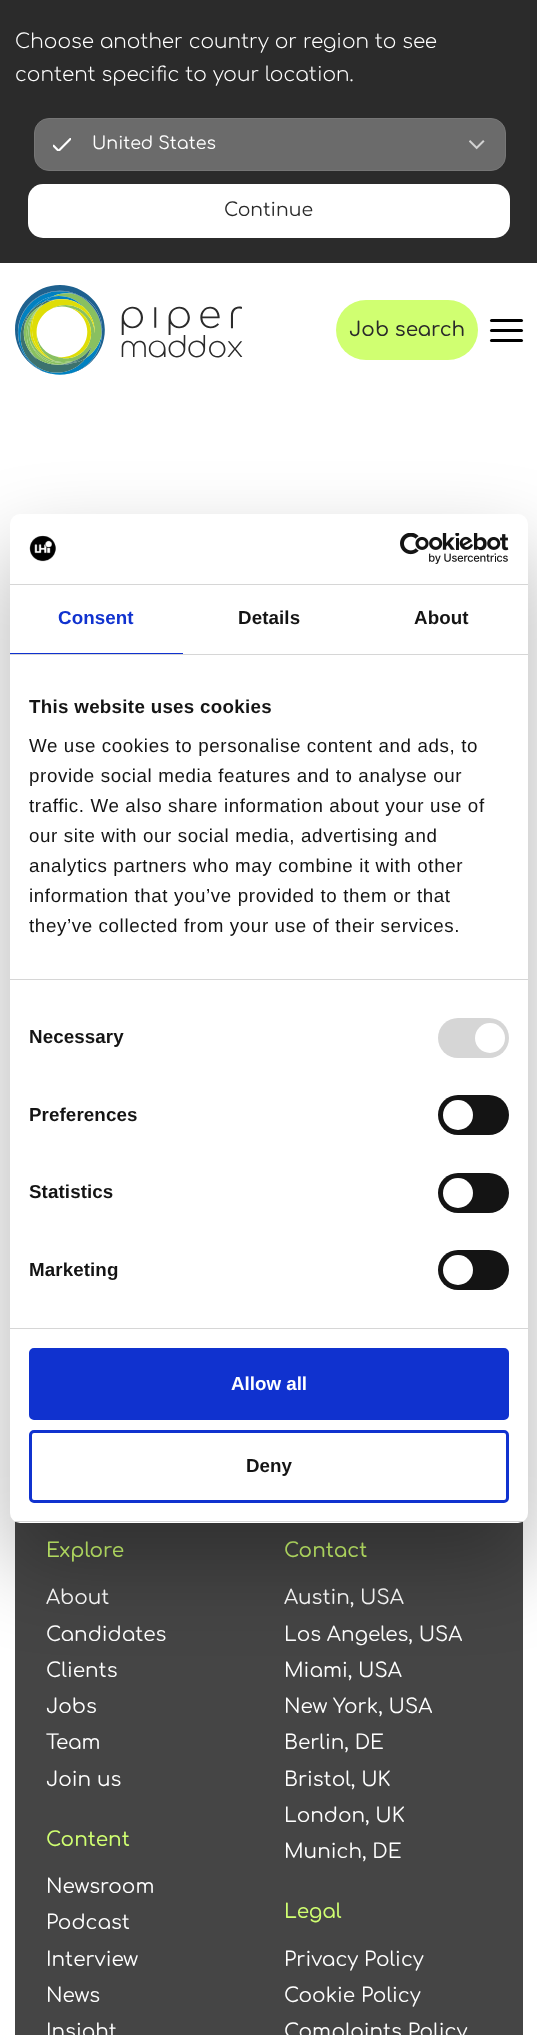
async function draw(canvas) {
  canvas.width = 537;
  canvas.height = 2035;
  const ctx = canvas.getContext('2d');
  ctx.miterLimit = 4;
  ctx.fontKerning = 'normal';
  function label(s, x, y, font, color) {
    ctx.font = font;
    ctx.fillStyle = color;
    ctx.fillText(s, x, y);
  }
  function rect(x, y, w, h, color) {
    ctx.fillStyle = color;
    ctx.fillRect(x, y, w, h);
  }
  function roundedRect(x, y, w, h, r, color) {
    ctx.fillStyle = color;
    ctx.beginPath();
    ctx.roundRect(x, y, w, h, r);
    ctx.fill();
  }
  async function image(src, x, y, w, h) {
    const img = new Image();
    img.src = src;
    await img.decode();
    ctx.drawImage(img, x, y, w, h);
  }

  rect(0, 0, 537, 2035, '#fff');
  rect(0, 0, 537, 263, '#2b2b2b');
  label('Choose another country or region to see', 15, 48, '300 20px Comfortaa', '#fff');
  label('content specific to your location.', 15, 81, '300 20px Comfortaa', '#fff');
  ctx.fillStyle = '#6b6b6b';
  ctx.beginPath();
  ctx.roundRect(34.5, 118.5, 471, 52, 14.5);
  ctx.fill();
  ctx.strokeStyle = '#767676';
  ctx.stroke();
  await image('assets/img1.png', 53, 138, 18, 13);
  label('United States', 92, 149, '17.5px Comfortaa', '#fff');
  await image('assets/img2.png', 469, 140, 16, 10);
  roundedRect(28, 184, 482, 54, 15, '#fff');
  label('Continue', 224, 216, '18.75px Comfortaa', '#2a2a2a');
  await image('assets/img3.png', 15, 285, 228, 90);
  roundedRect(336, 300, 142, 60, 30, '#d0ff71');
  label('Job search', 349, 336, '500 20px Comfortaa', '#2a2a2a');
  roundedRect(490, 319, 33, 3, 1.5, '#000');
  roundedRect(490, 329, 33, 3, 1.5, '#000');
  roundedRect(490, 339, 33, 3, 1.5, '#000');
  rect(15, 1521, 508, 514, '#454545');
  label('Explore', 46, 1557, '500 20px Comfortaa', '#d0ff71');
  label('About', 46, 1604, '20px Comfortaa', '#fff');
  label('Candidates', 46, 1641, '20px Comfortaa', '#fff');
  label('Clients', 46, 1677, '20px Comfortaa', '#fff');
  label('Jobs', 46, 1713, '20px Comfortaa', '#fff');
  label('Team', 46, 1749, '20px Comfortaa', '#fff');
  label('Join us', 46, 1786, '20px Comfortaa', '#fff');
  label('Content', 46, 1846, '500 20px Comfortaa', '#d0ff71');
  label('Newsroom', 46, 1893, '20px Comfortaa', '#fff');
  label('Podcast', 46, 1929, '20px Comfortaa', '#fff');
  label('Interview', 46, 1966, '20px Comfortaa', '#fff');
  label('News', 46, 2002, '20px Comfortaa', '#fff');
  label('Insight', 46, 2038, '20px Comfortaa', '#fff');
  label('Contact', 284, 1557, '500 20px Comfortaa', '#d0ff71');
  label('Austin, USA', 284, 1604, '20px Comfortaa', '#fff');
  label('Los Angeles, USA', 284, 1641, '20px Comfortaa', '#fff');
  label('Miami, USA', 284, 1677, '20px Comfortaa', '#fff');
  label('New York, USA', 284, 1713, '20px Comfortaa', '#fff');
  label('Berlin, DE', 284, 1749, '20px Comfortaa', '#fff');
  label('Bristol, UK', 284, 1786, '20px Comfortaa', '#fff');
  label('London, UK', 284, 1822, '20px Comfortaa', '#fff');
  label('Munich, DE', 284, 1858, '20px Comfortaa', '#fff');
  label('Legal', 284, 1918, '500 20px Comfortaa', '#d0ff71');
  label('Privacy Policy', 284, 1966, '20px Comfortaa', '#fff');
  label('Cookie Policy', 284, 2002, '20px Comfortaa', '#fff');
  label('Complaints Policy', 284, 2038, '20px Comfortaa', '#fff');
  ctx.fillStyle = '#0000004d';
  ctx.filter = 'blur(42.5px)';
  ctx.beginPath();
  ctx.roundRect(10, 554, 518, 1009, 10);
  ctx.fill();
  ctx.filter = 'none';
  roundedRect(10, 514, 518, 1009, 10, '#fff');
  rect(10, 584, 518, 1, '#d6d6d6');
  await image('assets/img4.png', 29, 535, 27, 27);
  await image('assets/img5.png', 400, 533, 109, 31);
  rect(10, 654, 518, 1, '#d6d6d6');
  rect(10, 653, 173, 1, '#1032cf');
  ctx.letterSpacing = '0.1px';
  label('Consent', 58, 624, 'bold 18.75px Liberation Sans', '#1032cf');
  label('Details', 238, 624, 'bold 18.75px Liberation Sans', '#141414');
  label('About', 414, 624, 'bold 18.75px Liberation Sans', '#141414');
  rect(10, 979, 518, 1, '#d6d6d6');
  ctx.letterSpacing = '0.3px';
  label('This website uses cookies', 29, 713, 'bold 18.75px Liberation Sans', '#141414');
  ctx.letterSpacing = '0.62px';
  label('We use cookies to personalise content and ads, to', 29, 752, '18.75px Liberation Sans', '#141414');
  label('provide social media features and to analyse our', 29, 782, '18.75px Liberation Sans', '#141414');
  label('traffic. We also share information about your use of', 29, 812, '18.75px Liberation Sans', '#141414');
  label('our site with our social media, advertising and', 29, 842, '18.75px Liberation Sans', '#141414');
  label('analytics partners who may combine it with other', 29, 872, '18.75px Liberation Sans', '#141414');
  label('information that you’ve provided to them or that', 29, 902, '18.75px Liberation Sans', '#141414');
  label('they’ve collected from your use of their services.', 29, 932, '18.75px Liberation Sans', '#141414');
  rect(10, 1328, 518, 1, '#d6d6d6');
  ctx.letterSpacing = '0.1px';
  label('Necessary', 29, 1043, 'bold 18.75px Liberation Sans', '#141414');
  roundedRect(438, 1018, 71, 40, 20, '#d6d6d6');
  ctx.fillStyle = '#fff';
  ctx.beginPath();
  ctx.arc(490, 1038, 15, 0, 2 * Math.PI);
  ctx.fill();
  label('Preferences', 29, 1121, 'bold 18.75px Liberation Sans', '#141414');
  roundedRect(438, 1095, 71, 40, 20, '#141414');
  ctx.fillStyle = '#fff';
  ctx.beginPath();
  ctx.arc(458, 1115, 15, 0, 2 * Math.PI);
  ctx.fill();
  label('Statistics', 29, 1198, 'bold 18.75px Liberation Sans', '#141414');
  roundedRect(438, 1173, 71, 40, 20, '#141414');
  ctx.fillStyle = '#fff';
  ctx.beginPath();
  ctx.arc(458, 1193, 15, 0, 2 * Math.PI);
  ctx.fill();
  label('Marketing', 29, 1276, 'bold 18.75px Liberation Sans', '#141414');
  roundedRect(438, 1250, 71, 40, 20, '#141414');
  ctx.fillStyle = '#fff';
  ctx.beginPath();
  ctx.arc(458, 1270, 15, 0, 2 * Math.PI);
  ctx.fill();
  ctx.save();
  ctx.beginPath();
  ctx.roundRect(10, 514, 518, 1009, 10);
  ctx.clip();
  rect(10, 1521, 518, 1, '#d6d6d6');
  ctx.restore();
  ctx.fillStyle = '#1032cf';
  ctx.beginPath();
  ctx.roundRect(30.5, 1349.5, 477, 69, 3.5);
  ctx.fill();
  ctx.strokeStyle = '#1032cf';
  ctx.lineWidth = 3;
  ctx.stroke();
  ctx.letterSpacing = '0px';
  label('Allow all', 231, 1390, 'bold 18.75px Liberation Sans', '#fff');
  ctx.beginPath();
  ctx.roundRect(30.5, 1431.5, 477, 70, 3.5);
  ctx.stroke();
  label('Deny', 246, 1472, 'bold 18.75px Liberation Sans', '#141414');
}

draw(document.querySelector('canvas'));
